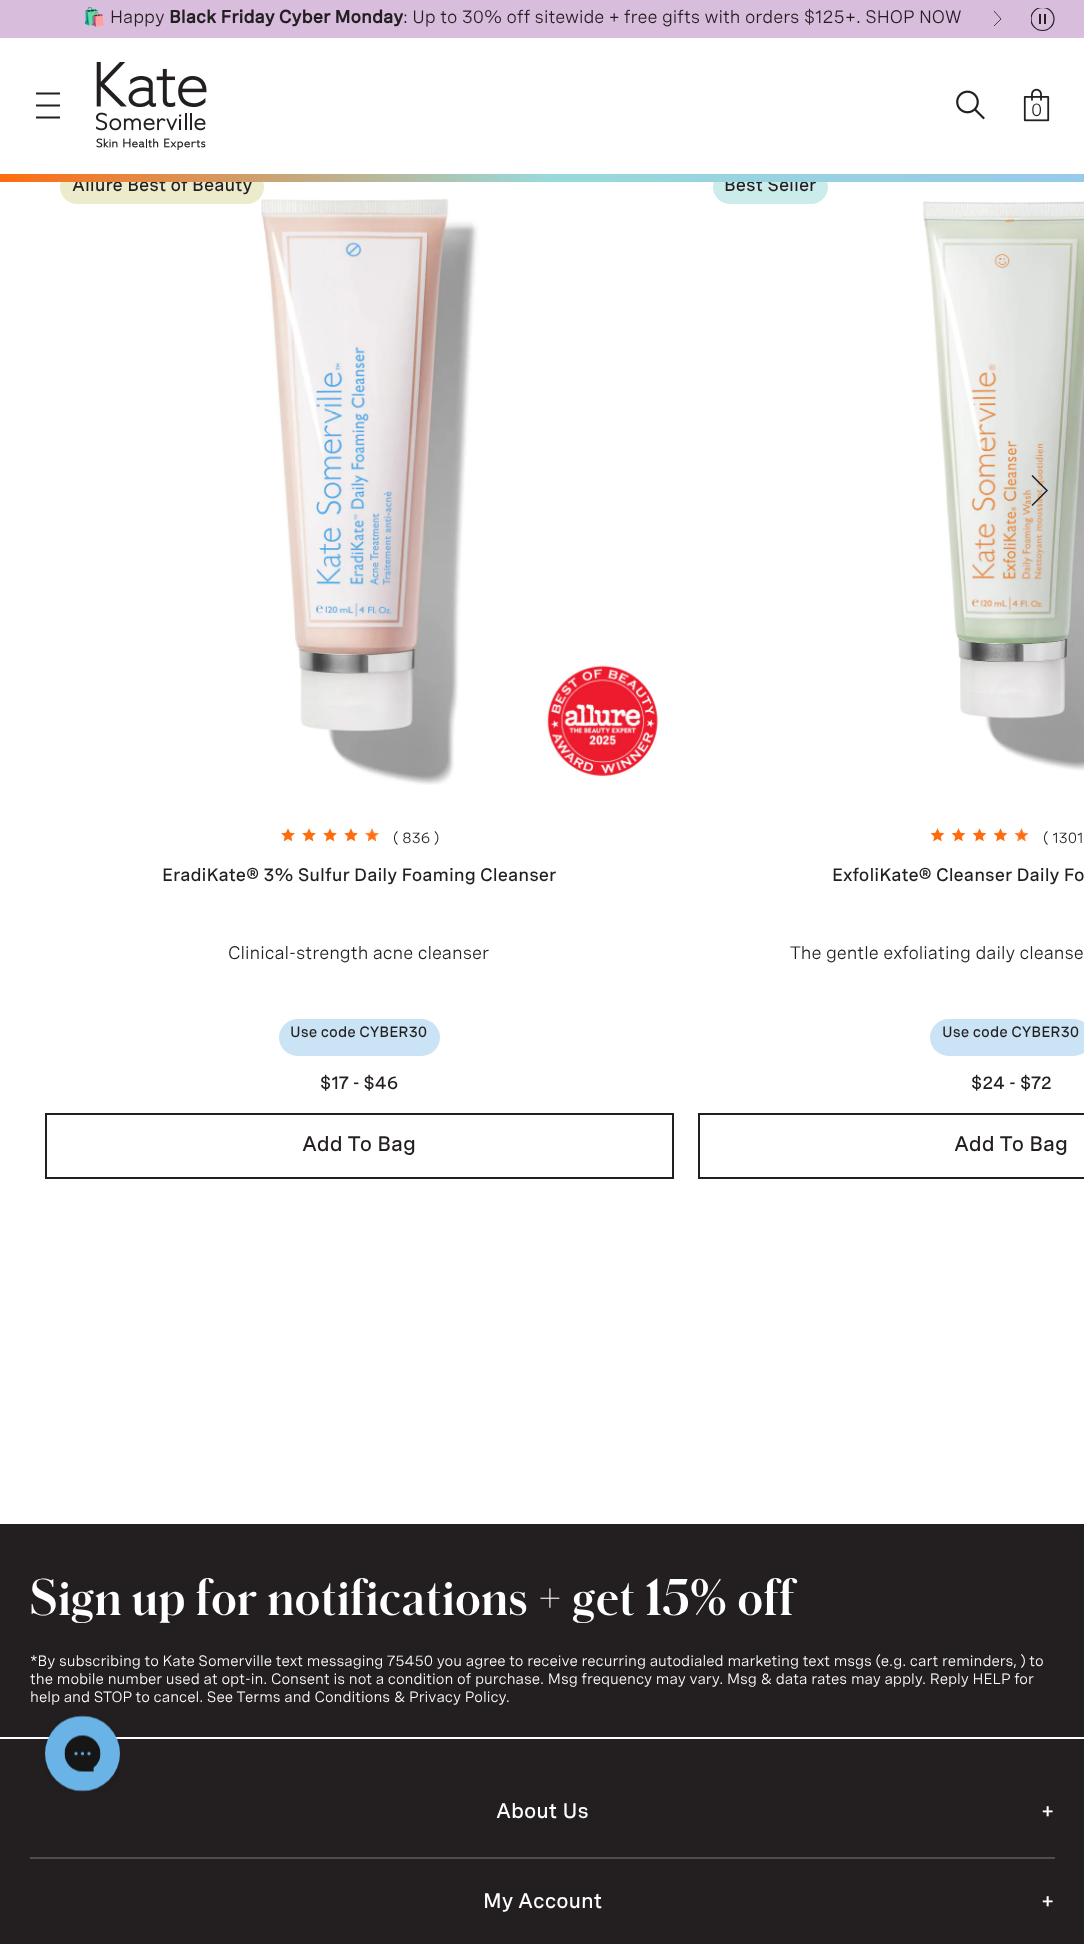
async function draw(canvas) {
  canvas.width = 1084;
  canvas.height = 1944;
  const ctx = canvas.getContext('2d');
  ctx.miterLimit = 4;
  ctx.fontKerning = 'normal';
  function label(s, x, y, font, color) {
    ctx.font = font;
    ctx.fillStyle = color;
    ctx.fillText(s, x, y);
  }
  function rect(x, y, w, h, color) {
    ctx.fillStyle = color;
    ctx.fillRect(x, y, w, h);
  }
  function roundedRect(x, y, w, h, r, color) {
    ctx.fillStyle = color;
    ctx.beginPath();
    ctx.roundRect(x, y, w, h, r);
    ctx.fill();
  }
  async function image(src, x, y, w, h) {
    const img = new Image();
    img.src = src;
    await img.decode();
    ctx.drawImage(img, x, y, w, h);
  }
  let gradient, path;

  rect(0, 0, 1084, 1944, '#fff');
  await image('assets/img4.png', 261, 198, 397, 587);
  roundedRect(60, 170, 204, 34, 17, '#ecebcc');
  roundedRect(713, 170, 115, 34, 17, '#ccecec');
  rect(66, 170, 756, 4, '#fff');
  rect(0, 0, 1084, 38, '#d8bddc');
  label('🛍️', 83, 23, '18px Noto Color Emoji', '#231f20');
  label('Happy', 110, 23, '18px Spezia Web', '#231f20');
  label('Black Friday Cyber Monday', 169, 23, 'bold 18px Spezia Web', '#231f20');
  label(': Up to 30% off sitewide + free gifts with orders $125+. SHOP NOW', 403, 23, '18px Spezia Web', '#231f20');
  path = new Path2D('M994 11L1001 19L994 26');
  ctx.strokeStyle = '#231f20';
  ctx.lineWidth = 0.8;
  ctx.stroke(path);
  ctx.save();
  ctx.beginPath();
  ctx.rect(1031, 8, 24, 24);
  ctx.clip();
  ctx.beginPath();
  ctx.arc(1042.5, 19, 11.5, 0, 2 * Math.PI);
  ctx.lineWidth = 1.2;
  ctx.stroke();
  ctx.restore();
  rect(1039, 14, 2, 10, '#231f20');
  rect(1044, 14, 2, 10, '#231f20');
  path = new Path2D('M36 93.5H60M36 105.5H60M36 117.5H60');
  ctx.lineWidth = 1.9;
  ctx.stroke(path);
  await image('assets/img1.png', 96, 62, 111, 88);
  await image('assets/img2.png', 956, 90, 29, 30);
  await image('assets/img3.png', 1023, 88, 27, 34);
  label('0', 1031, 116, '18px Spezia Web', '#231f20');
  label('Allure Best of Beauty', 72, 191, '500 18px Spezia Web', '#231f20');
  label('Best Seller', 724, 191, '500 18px Spezia Web', '#231f20');
  gradient = ctx.createLinearGradient(0, 178, 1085, 178);
  gradient.addColorStop(0, '#ff6c0e');
  gradient.addColorStop(0.5, '#99d9d9');
  gradient.addColorStop(1, '#97caeb');
  ctx.fillStyle = gradient;
  ctx.fillRect(0, 174, 1084, 8);
  await image('assets/img5.png', 281, 828, 14, 14);
  await image('assets/img5.png', 302, 828, 14, 14);
  await image('assets/img5.png', 323, 828, 14, 14);
  await image('assets/img5.png', 344, 828, 14, 14);
  await image('assets/img5.png', 365, 828, 14, 14);
  await image('assets/img6.png', 366, 830, 12, 10);
  await image('assets/img7.png', 366, 830, 11, 10);
  label('( 836 )', 393, 843, '15px Spezia Web', '#231f20');
  label('EradiKate® 3% Sulfur Daily Foaming Cleanser', 162, 881, '500 18px Spezia Web', '#231f20');
  label('Clinical-strength acne cleanser', 228, 959, '18px Spezia Web', '#231f20');
  roundedRect(279, 1019, 161, 37, 18.5, '#cbe4f5');
  label('Use code CYBER30', 290, 1037, '500 15px Spezia Web', '#231f20');
  label('$17 - $46', 320, 1089, '500 18px Spezia Web', '#231f20');
  ctx.lineWidth = 2;
  ctx.strokeRect(46, 1114, 627, 64);
  label('Add To Bag', 302, 1151, '500 21px Spezia Web', '#231f20');
  await image('assets/img8.png', 923, 201, 161, 570);
  await image('assets/img9.png', 930, 828, 15, 14);
  await image('assets/img9.png', 951, 828, 15, 14);
  await image('assets/img9.png', 972, 828, 15, 14);
  await image('assets/img9.png', 993, 828, 15, 14);
  await image('assets/img9.png', 1014, 828, 15, 14);
  await image('assets/img10.png', 1016, 830, 11, 10);
  await image('assets/img11.png', 1016, 830, 11, 10);
  label('( 1301', 1043, 843, '15px Spezia Web', '#231f20');
  label('ExfoliKate® Cleanser Daily Fo', 832, 881, '500 18px Spezia Web', '#231f20');
  label('The gentle exfoliating daily cleanse', 790, 959, '18px Spezia Web', '#231f20');
  roundedRect(930, 1019, 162, 37, 18.5, '#cbe4f5');
  label('Use code CYBER30', 942, 1037, '500 15px Spezia Web', '#231f20');
  label('$24 - $72', 971, 1089, '500 18px Spezia Web', '#231f20');
  ctx.strokeRect(699, 1114, 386, 64);
  label('Add To Bag', 954, 1151, '500 21px Spezia Web', '#231f20');
  path = new Path2D('M1032 475.5L1047 490.5L1032 505.5');
  ctx.lineWidth = 1.5;
  ctx.stroke(path);
  rect(0, 1524, 1084, 420, '#231f20');
  rect(0, 1737, 1084, 2, '#fff');
  ctx.letterSpacing = '0.95px';
  ctx.wordSpacing = '0.25px';
  label('Sign up for notifications + get 15% off', 30, 1615, 'bold 48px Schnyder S', '#fff');
  ctx.letterSpacing = '0px';
  ctx.wordSpacing = '0px';
  label('*By subscribing to Kate Somerville text messaging 75450 you agree to receive recurring autodialed marketing text msgs (e.g. cart reminders, ) to', 30, 1666, '15px Spezia Web', '#fff');
  label('the mobile number used at opt-in. Consent is not a condition of purchase. Msg frequency may vary. Msg & data rates may apply. Reply HELP for', 30, 1684, '15px Spezia Web', '#fff');
  label('help and STOP to cancel. See Terms and Conditions & Privacy Policy.', 30, 1702, '15px Spezia Web', '#fff');
  label('About Us', 496, 1818, '500 21px Spezia Web', '#fff');
  label('+', 1041, 1818, '500 21px Spezia Web', '#fff');
  rect(30, 1857, 1025, 2, '#4d4d4f');
  label('My Account', 483, 1908, '500 21px Spezia Web', '#fff');
  label('+', 1041, 1908, '500 21px Spezia Web', '#fff');
  await image('assets/img12.png', 45, 1715, 75, 77);
}

draw(document.querySelector('canvas'));
